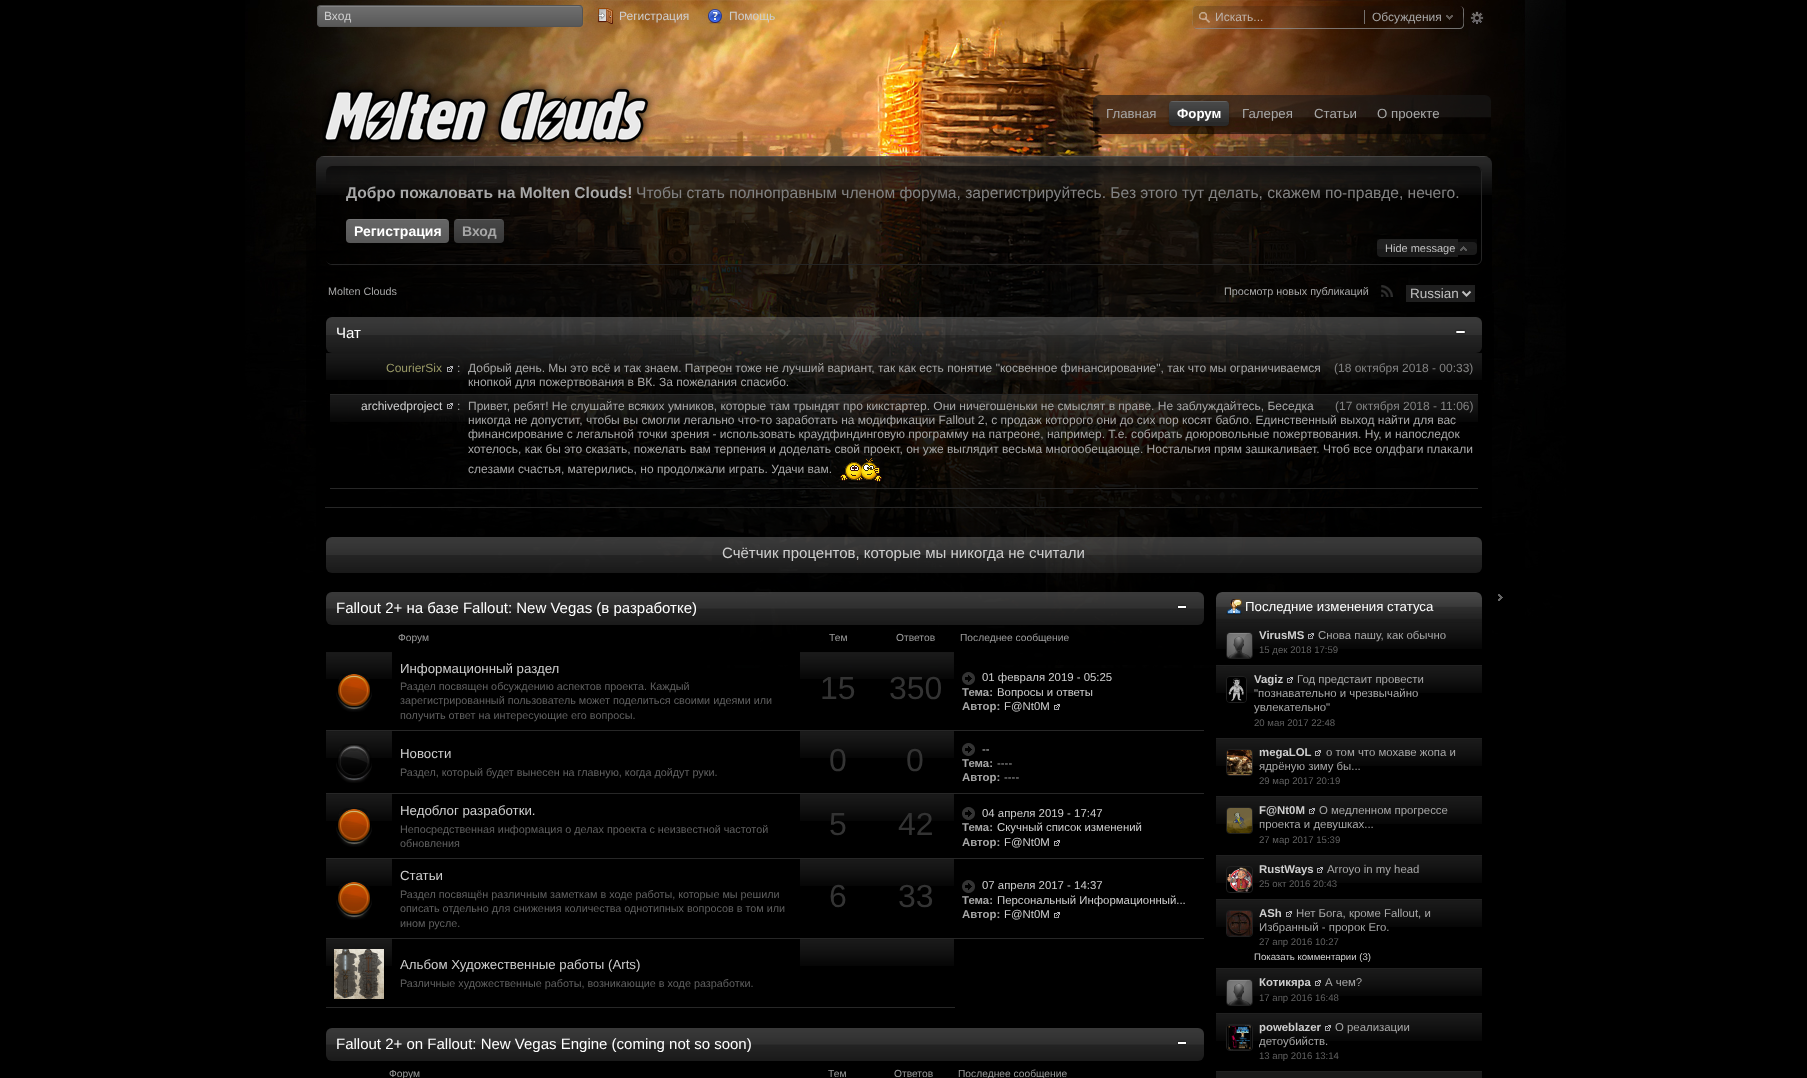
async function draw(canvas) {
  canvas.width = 1807;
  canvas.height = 1078;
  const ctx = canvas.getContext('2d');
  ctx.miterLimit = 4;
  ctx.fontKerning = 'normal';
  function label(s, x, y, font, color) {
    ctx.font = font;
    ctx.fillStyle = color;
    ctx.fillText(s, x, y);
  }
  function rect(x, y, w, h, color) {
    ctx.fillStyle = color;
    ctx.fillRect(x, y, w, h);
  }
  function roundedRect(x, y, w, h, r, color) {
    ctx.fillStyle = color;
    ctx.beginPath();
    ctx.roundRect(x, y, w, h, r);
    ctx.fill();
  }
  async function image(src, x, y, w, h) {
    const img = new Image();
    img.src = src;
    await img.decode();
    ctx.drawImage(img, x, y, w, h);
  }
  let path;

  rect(0, 0, 1807, 1078, '#000');
  await image('assets/img1.png', 245, 0, 1321, 668);
  roundedRect(317, 5, 266, 22, 4, '#545454');
  await image('assets/img2.png', 317, 6, 266, 21);
  ctx.beginPath();
  ctx.roundRect(317.5, 5.5, 265, 21, 3.5);
  ctx.strokeStyle = '#545454';
  ctx.stroke();
  label('Вход', 324, 20, '12px Liberation Sans', '#cecece');
  await image('assets/img3.png', 597, 8, 16, 16);
  label('Регистрация', 619, 20, '12px Liberation Sans', '#cecece');
  await image('assets/img4.png', 708, 9, 14, 15);
  label('Помощь', 729, 20, '12px Liberation Sans', '#cecece');
  await image('assets/img5.png', 1193, 6, 257, 23);
  ctx.fillStyle = '#8c8c8ccc';
  path = new Path2D('M1197 6H1460C1462 6 1464 8 1464 10V25C1464 27 1462 29 1460 29H1197C1195 29 1193 27 1193 25V10C1193 8 1195 6 1197 6ZM1197 6H1461C1464 8 1463 13 1463 15C1463 18 1465 28 1460 28H1196C1191 27 1193 21 1193 18C1193 14 1191 6 1197 6Z');
  ctx.fill(path, 'evenodd');
  await image('assets/img6.png', 1199, 12, 11, 11);
  label('Искать...', 1215, 21, '12px Liberation Sans', '#beb3ab');
  await image('assets/img7.png', 1446, 15, 7, 5);
  rect(1364, 10, 1, 14, '#898989cc');
  label('Обсуждения', 1372, 21, '12px Liberation Sans', '#a7a7a7');
  await image('assets/img8.png', 1470, 11, 14, 13);
  await image('assets/img9.png', 322, 82, 333, 67);
  await image('assets/img10.png', 1093, 95, 398, 39);
  label('Главная', 1106, 118, '13.25px Liberation Sans', '#a7a7a7');
  ctx.fillStyle = '#0000004d';
  ctx.filter = 'blur(1.5px)';
  ctx.beginPath();
  ctx.roundRect(1169, 102, 60, 25, 4);
  ctx.fill();
  ctx.filter = 'none';
  roundedRect(1169, 101, 60, 25, 4, '#292929');
  await image('assets/img11.png', 1169, 101, 60, 21);
  label('Форум', 1177, 118, 'bold 13.25px Liberation Sans', '#fff');
  label('Галерея', 1242, 118, '13.25px Liberation Sans', '#a7a7a7');
  label('Статьи', 1314, 118, '13.25px Liberation Sans', '#a7a7a7');
  label('О проекте', 1377, 118, '13.25px Liberation Sans', '#a7a7a7');
  await image('assets/img12.png', 306, 217, 11, 231);
  await image('assets/img13.png', 1492, 293, 2, 102);
  await image('assets/img14.png', 316, 156, 1176, 509);
  await image('assets/img15.png', 316, 156, 1176, 39);
  await image('assets/img16.png', 326, 166, 1156, 17);
  ctx.fillStyle = '#252525';
  path = new Path2D('M332 166H1476C1479 166 1482 169 1482 172V259C1482 262 1479 265 1476 265H332C329 265 326 262 326 259V172C326 169 329 166 332 166ZM332 166H1476C1479 166 1481 169 1481 172V259C1481 262 1479 264 1476 264H332C329 264 326 262 326 259V172C326 169 329 166 332 166Z');
  ctx.fill(path, 'evenodd');
  label('Добро пожаловать на Molten Clouds!', 346, 198, 'bold 15.6px Liberation Sans', '#a7a7a7');
  label('Чтобы стать полноправным членом форума, зарегистрируйтесь. Без этого тут делать, скажем по-правде, нечего.', 636, 198, '15.6px Liberation Sans', '#828282');
  roundedRect(346, 219, 103, 24, 4, '#4b4b4b');
  await image('assets/img17.png', 346, 219, 103, 24);
  roundedRect(454, 219, 50, 24, 4, '#272727');
  await image('assets/img18.png', 454, 219, 50, 24);
  label('Регистрация', 354, 236, 'bold 14px Liberation Sans', '#fff');
  label('Вход', 462, 236, 'bold 14px Liberation Sans', '#a7a7a7');
  ctx.fillStyle = '#252525b3';
  ctx.beginPath();
  ctx.roundRect(1377, 239, 81, 18, [4, 0, 0, 4]);
  ctx.fill();
  rect(1377, 239, 100, 10, '#ffffff08');
  label('Hide message', 1385, 252, '11px Liberation Sans', '#c0c0c0');
  ctx.fillStyle = '#252525b3';
  ctx.beginPath();
  ctx.roundRect(1458, 242, 19, 13, [0, 4, 4, 0]);
  ctx.fill();
  await image('assets/img19.png', 1460, 246, 7, 5);
  label('Molten Clouds', 328, 295, '10.8px Liberation Sans', '#a7a7a7');
  label('Просмотр новых публикаций', 1224, 295, '10.8px Liberation Sans', '#a7a7a7');
  await image('assets/img20.png', 1381, 285, 12, 12);
  rect(1406, 285, 69, 17, '#1f1f1f');
  path = new Path2D('M1462.5 291.5L1466.5 295.5L1470.5 291.5');
  ctx.strokeStyle = '#c0c0c0';
  ctx.lineWidth = 2;
  ctx.stroke(path);
  label('Russian', 1410, 298, '13.5px Liberation Sans', '#c0c0c0');
  await image('assets/img21.png', 326, 317, 1156, 36);
  label('Чат', 336, 338, '15px Liberation Sans', '#fff');
  await image('assets/img22.png', 1455, 329, 11, 6);
  await image('assets/img23.png', 326, 353, 1156, 27);
  rect(325, 507, 1157, 1, '#272727');
  label('CourierSix', 386, 372, '12px Liberation Sans', '#996');
  await image('assets/img24.png', 447, 366, 6, 6);
  label(':', 457, 372, '12px Liberation Sans', '#a7a7a7');
  rect(330, 394, 1148, 1, '#272727');
  label('Добрый день. Мы это всё и так знаем. Патреон тоже не лучший вариант, так как есть понятие "косвенное финансирование", так что мы ограничиваемся', 468, 372, '12px Liberation Sans', '#a7a7a7');
  label('(18 октября 2018 - 00:33)', 1334, 372, '12px Liberation Sans', '#828282');
  label('кнопкой для пожертвования в ВК. За пожелания спасибо.', 468, 386, '12px Liberation Sans', '#a7a7a7');
  await image('assets/img25.png', 330, 395, 134, 27);
  label('archivedproject', 361, 410, '12px Liberation Sans', '#cecece');
  await image('assets/img26.png', 447, 403, 6, 6);
  label(':', 457, 410, '12px Liberation Sans', '#a7a7a7');
  await image('assets/img27.png', 464, 395, 1014, 27);
  rect(330, 488, 1148, 1, '#272727');
  label('Привет, ребят! Не слушайте всяких умников, которые там трындят про кикстартер. Они ничегошеньки не смыслят в праве. Не заблуждайтесь, Беседка', 468, 410, '12px Liberation Sans', '#a7a7a7');
  label('(17 октября 2018 - 11:06)', 1335, 410, '12px Liberation Sans', '#828282');
  label('никогда не допустит, чтобы вы смогли легально что-то заработать на модификации Fallout 2, с продаж которого они до сих пор косят бабло. Единственный выход найти для вас', 468, 424, '12px Liberation Sans', '#a7a7a7');
  label('финансирование с легальной точки зрения - использовать краудфиндинговую программу на патреоне, например. Т.е. собирать доюровольные пожертвования. Ну, и напоследок', 468, 438, '12px Liberation Sans', '#a7a7a7');
  label('хотелось, как бы это сказать, пожелать вам терпения и доделать свой проект, он уже выглядит весьма многообещающе. Ностальгия прям зашкаливает. Чтоб все олдфаги плакали', 468, 453, '12px Liberation Sans', '#a7a7a7');
  label('слезами счастья, матерились, но продолжали играть. Удачи вам.', 468, 473, '12px Liberation Sans', '#a7a7a7');
  await image('assets/img28.png', 840, 458, 42, 24);
  await image('assets/img29.png', 326, 537, 1156, 36);
  label('Счётчик процентов, которые мы никогда не считали', 722, 558, '15px Liberation Sans', '#cecece');
  await image('assets/img30.png', 1498, 594, 5, 7);
  await image('assets/img31.png', 326, 592, 878, 33);
  label('Fallout 2+ на базе Fallout: New Vegas (в разработке)', 336, 613, '15px Liberation Sans', '#fff');
  await image('assets/img32.png', 1177, 604, 10, 5);
  label('Форум', 398, 641, '10.25px Liberation Sans', '#9c9c9c');
  label('Тем', 829, 641, '10.25px Liberation Sans', '#9c9c9c');
  label('Ответов', 896, 641, '10.25px Liberation Sans', '#9c9c9c');
  label('Последнее сообщение', 960, 641, '10.25px Liberation Sans', '#9c9c9c');
  await image('assets/img33.png', 326, 652, 66, 27);
  await image('assets/img34.png', 336, 674, 36, 38);
  label('Информационный раздел', 400, 673, '13.25px Liberation Sans', '#cecece');
  label('Раздел посвящен обсуждению аспектов проекта. Каждый', 400, 690, '10.8px Liberation Sans', '#606060');
  label('зарегистрированный пользователь может поделиться своими идеями или', 400, 704, '10.8px Liberation Sans', '#606060');
  label('получить ответ на интересующие его вопросы.', 400, 719, '10.8px Liberation Sans', '#606060');
  await image('assets/img35.png', 800, 652, 76, 27);
  label('15', 820, 699, '32px Liberation Sans', '#333');
  await image('assets/img36.png', 876, 652, 78, 27);
  label('350', 889, 699, '32px Liberation Sans', '#333');
  rect(326, 730, 878, 1, '#272727');
  await image('assets/img37.png', 962, 672, 13, 13);
  label('01 февраля 2019 - 05:25', 982, 681, '11.4px Liberation Sans', '#cecece');
  label('Тема:', 962, 696, 'bold 11.4px Liberation Sans', '#a7a7a7');
  label('Вопросы и ответы', 997, 696, '11.4px Liberation Sans', '#cecece');
  label('Автор:', 962, 710, 'bold 11.4px Liberation Sans', '#a7a7a7');
  label('F@Nt0M', 1004, 710, '11.4px Liberation Sans', '#cecece');
  await image('assets/img38.png', 1054, 704, 6, 6);
  await image('assets/img33.png', 326, 731, 66, 27);
  await image('assets/img39.png', 336, 744, 36, 39);
  label('Новости', 400, 758, '13.25px Liberation Sans', '#cecece');
  label('Раздел, который будет вынесен на главную, когда дойдут руки.', 400, 776, '10.8px Liberation Sans', '#606060');
  await image('assets/img40.png', 800, 731, 76, 27);
  label('0', 829, 771, '32px Liberation Sans', '#333');
  await image('assets/img41.png', 876, 731, 78, 27);
  label('0', 906, 771, '32px Liberation Sans', '#333');
  rect(326, 793, 878, 1, '#272727');
  await image('assets/img37.png', 962, 743, 13, 13);
  label('--', 982, 753, '11.4px Liberation Sans', '#cecece');
  label('Тема:', 962, 767, 'bold 11.4px Liberation Sans', '#a7a7a7');
  label('----', 997, 767, '11.4px Liberation Sans', '#a7a7a7');
  label('Автор:', 962, 781, 'bold 11.4px Liberation Sans', '#a7a7a7');
  label('----', 1004, 781, '11.4px Liberation Sans', '#a7a7a7');
  await image('assets/img33.png', 326, 794, 66, 27);
  await image('assets/img42.png', 336, 808, 36, 39);
  label('Недоблог разработки.', 400, 815, '13.25px Liberation Sans', '#cecece');
  label('Непосредственная информация о делах проекта с неизвестной частотой', 400, 833, '10.8px Liberation Sans', '#606060');
  label('обновления', 400, 847, '10.8px Liberation Sans', '#606060');
  await image('assets/img40.png', 800, 794, 76, 27);
  label('5', 829, 835, '32px Liberation Sans', '#333');
  await image('assets/img41.png', 876, 794, 78, 27);
  label('42', 898, 835, '32px Liberation Sans', '#333');
  rect(326, 858, 878, 1, '#272727');
  await image('assets/img37.png', 962, 807, 13, 13);
  label('04 апреля 2019 - 17:47', 982, 817, '11.4px Liberation Sans', '#cecece');
  label('Тема:', 962, 831, 'bold 11.4px Liberation Sans', '#a7a7a7');
  label('Скучный список изменений', 997, 831, '11.4px Liberation Sans', '#cecece');
  label('Автор:', 962, 846, 'bold 11.4px Liberation Sans', '#a7a7a7');
  label('F@Nt0M', 1004, 846, '11.4px Liberation Sans', '#cecece');
  await image('assets/img38.png', 1054, 840, 6, 6);
  await image('assets/img33.png', 326, 859, 66, 27);
  await image('assets/img43.png', 336, 882, 36, 38);
  label('Статьи', 400, 880, '13.25px Liberation Sans', '#cecece');
  label('Раздел посвящён различным заметкам в ходе работы, которые мы решили', 400, 898, '10.8px Liberation Sans', '#606060');
  label('описать отдельно для снижения количества однотипных вопросов в том или', 400, 912, '10.8px Liberation Sans', '#606060');
  label('ином русле.', 400, 927, '10.8px Liberation Sans', '#606060');
  await image('assets/img40.png', 800, 859, 76, 27);
  label('6', 829, 907, '32px Liberation Sans', '#333');
  await image('assets/img41.png', 876, 859, 78, 27);
  label('33', 898, 907, '32px Liberation Sans', '#333');
  rect(326, 938, 878, 1, '#272727');
  await image('assets/img37.png', 962, 880, 13, 13);
  label('07 апреля 2017 - 14:37', 982, 889, '11.4px Liberation Sans', '#cecece');
  label('Тема:', 962, 904, 'bold 11.4px Liberation Sans', '#a7a7a7');
  label('Персональный Информационный...', 997, 904, '11.4px Liberation Sans', '#cecece');
  label('Автор:', 962, 918, 'bold 11.4px Liberation Sans', '#a7a7a7');
  label('F@Nt0M', 1004, 918, '11.4px Liberation Sans', '#cecece');
  await image('assets/img38.png', 1054, 912, 6, 6);
  await image('assets/img33.png', 326, 939, 66, 27);
  await image('assets/img44.png', 334, 949, 50, 50);
  rect(326, 1007, 629, 1, '#272727');
  await image('assets/img45.png', 800, 939, 154, 27);
  label('Альбом Художественные работы (Arts)', 400, 969, '13.25px Liberation Sans', '#cecece');
  label('Различные художественные работы, возникающие в ходе разработки.', 400, 987, '10.8px Liberation Sans', '#606060');
  await image('assets/img46.png', 326, 1028, 878, 33);
  label('Fallout 2+ on Fallout: New Vegas Engine (coming not so soon)', 336, 1049, '15px Liberation Sans', '#fff');
  await image('assets/img47.png', 1177, 1040, 10, 5);
  label('Форум', 389, 1077, '10.25px Liberation Sans', '#9c9c9c');
  label('Тем', 828, 1077, '10.25px Liberation Sans', '#9c9c9c');
  label('Ответов', 894, 1077, '10.25px Liberation Sans', '#9c9c9c');
  label('Последнее сообщение', 958, 1077, '10.25px Liberation Sans', '#9c9c9c');
  await image('assets/img48.png', 1216, 592, 266, 27);
  await image('assets/img49.png', 1216, 592, 266, 30);
  await image('assets/img50.png', 1226, 599, 16, 16);
  label('Последние изменения статуса', 1245, 611, '13.25px Liberation Sans', '#fff');
  await image('assets/img51.png', 1216, 622, 266, 27);
  rect(1216, 665, 266, 1, '#202020');
  ctx.beginPath();
  ctx.roundRect(1226.5, 632.5, 26, 26, 3.5);
  ctx.strokeStyle = '#202020';
  ctx.lineWidth = 1;
  ctx.stroke();
  await image('assets/img52.png', 1227, 633, 25, 25);
  label('VirusMS', 1259, 639, 'bold 11.4px Liberation Sans', '#cecece');
  await image('assets/img53.png', 1308, 633, 6, 6);
  label('Снова пашу, как обычно', 1318, 639, '11.4px Liberation Sans', '#a7a7a7');
  label('15 дек 2018 17:59', 1259, 653, '9.6px Liberation Sans', '#606060');
  await image('assets/img54.png', 1216, 666, 266, 27);
  rect(1216, 738, 266, 1, '#202020');
  ctx.beginPath();
  ctx.roundRect(1226.5, 676.5, 20, 26, 3.5);
  ctx.stroke();
  await image('assets/img55.png', 1227, 677, 19, 25);
  label('Vagiz', 1254, 683, 'bold 11.4px Liberation Sans', '#cecece');
  await image('assets/img56.png', 1287, 677, 6, 6);
  label('Год предстаит провести', 1297, 683, '11.4px Liberation Sans', '#a7a7a7');
  label('"познавательно и чрезвычайно', 1254, 697, '11.4px Liberation Sans', '#a7a7a7');
  label('увлекательно"', 1254, 711, '11.4px Liberation Sans', '#a7a7a7');
  label('20 мая 2017 22:48', 1254, 726, '9.6px Liberation Sans', '#606060');
  await image('assets/img57.png', 1216, 739, 266, 27);
  rect(1216, 796, 266, 1, '#202020');
  ctx.beginPath();
  ctx.roundRect(1226.5, 749.5, 26, 26, 3.5);
  ctx.stroke();
  await image('assets/img58.png', 1227, 750, 25, 25);
  label('megaLOL', 1259, 756, 'bold 11.4px Liberation Sans', '#cecece');
  await image('assets/img56.png', 1315, 750, 6, 6);
  label('о том что мохаве жопа и', 1326, 756, '11.4px Liberation Sans', '#a7a7a7');
  label('ядрёную зиму бы...', 1259, 770, '11.4px Liberation Sans', '#a7a7a7');
  label('29 мар 2017 20:19', 1259, 784, '9.6px Liberation Sans', '#606060');
  await image('assets/img57.png', 1216, 797, 266, 27);
  rect(1216, 855, 266, 1, '#202020');
  ctx.beginPath();
  ctx.roundRect(1226.5, 807.5, 26, 26, 3.5);
  ctx.stroke();
  await image('assets/img59.png', 1227, 808, 25, 25);
  label('F@Nt0M', 1259, 814, 'bold 11.4px Liberation Sans', '#cecece');
  await image('assets/img56.png', 1309, 808, 6, 6);
  label('О медленном прогрессе', 1319, 814, '11.4px Liberation Sans', '#a7a7a7');
  label('проекта и девушках...', 1259, 828, '11.4px Liberation Sans', '#a7a7a7');
  label('27 мар 2017 15:39', 1259, 843, '9.6px Liberation Sans', '#606060');
  await image('assets/img57.png', 1216, 856, 266, 27);
  rect(1216, 899, 266, 1, '#202020');
  ctx.beginPath();
  ctx.roundRect(1226.5, 866.5, 26, 26, 3.5);
  ctx.stroke();
  await image('assets/img60.png', 1227, 867, 25, 25);
  label('RustWays', 1259, 873, 'bold 11.4px Liberation Sans', '#cecece');
  await image('assets/img56.png', 1317, 867, 6, 6);
  label('Arroyo in my head', 1327, 873, '11.4px Liberation Sans', '#a7a7a7');
  label('25 окт 2016 20:43', 1259, 887, '9.6px Liberation Sans', '#606060');
  await image('assets/img57.png', 1216, 900, 266, 27);
  rect(1216, 968, 266, 1, '#202020');
  ctx.beginPath();
  ctx.roundRect(1226.5, 910.5, 26, 26, 3.5);
  ctx.stroke();
  await image('assets/img61.png', 1227, 911, 25, 25);
  label('ASh', 1259, 917, 'bold 11.4px Liberation Sans', '#cecece');
  await image('assets/img56.png', 1286, 911, 6, 6);
  label('Нет Бога, кроме Fallout, и', 1296, 917, '11.4px Liberation Sans', '#a7a7a7');
  label('Избранный - пророк Его.', 1259, 931, '11.4px Liberation Sans', '#a7a7a7');
  label('27 апр 2016 10:27', 1259, 945, '9.6px Liberation Sans', '#606060');
  label('Показать комментарии (3)', 1254, 960, '9.6px Liberation Sans', '#cecece');
  await image('assets/img57.png', 1216, 969, 266, 27);
  rect(1216, 1013, 266, 1, '#202020');
  ctx.beginPath();
  ctx.roundRect(1226.5, 979.5, 26, 26, 3.5);
  ctx.stroke();
  await image('assets/img52.png', 1227, 980, 25, 25);
  label('Котикяра', 1259, 986, 'bold 11.4px Liberation Sans', '#cecece');
  await image('assets/img56.png', 1315, 980, 6, 6);
  label('А чем?', 1325, 986, '11.4px Liberation Sans', '#a7a7a7');
  label('17 апр 2016 16:48', 1259, 1001, '9.6px Liberation Sans', '#606060');
  await image('assets/img57.png', 1216, 1014, 266, 27);
  rect(1216, 1071, 266, 1, '#202020');
  ctx.beginPath();
  ctx.roundRect(1226.5, 1024.5, 26, 26, 3.5);
  ctx.stroke();
  await image('assets/img62.png', 1227, 1025, 25, 25);
  label('poweblazer', 1259, 1031, 'bold 11.4px Liberation Sans', '#cecece');
  await image('assets/img56.png', 1325, 1025, 6, 6);
  label('О реализации', 1335, 1031, '11.4px Liberation Sans', '#a7a7a7');
  label('детоубийств.', 1259, 1045, '11.4px Liberation Sans', '#a7a7a7');
  label('13 апр 2016 13:14', 1259, 1059, '9.6px Liberation Sans', '#606060');
  rect(1216, 1072, 266, 6, '#1a1a1a');
}

draw(document.querySelector('canvas'));
